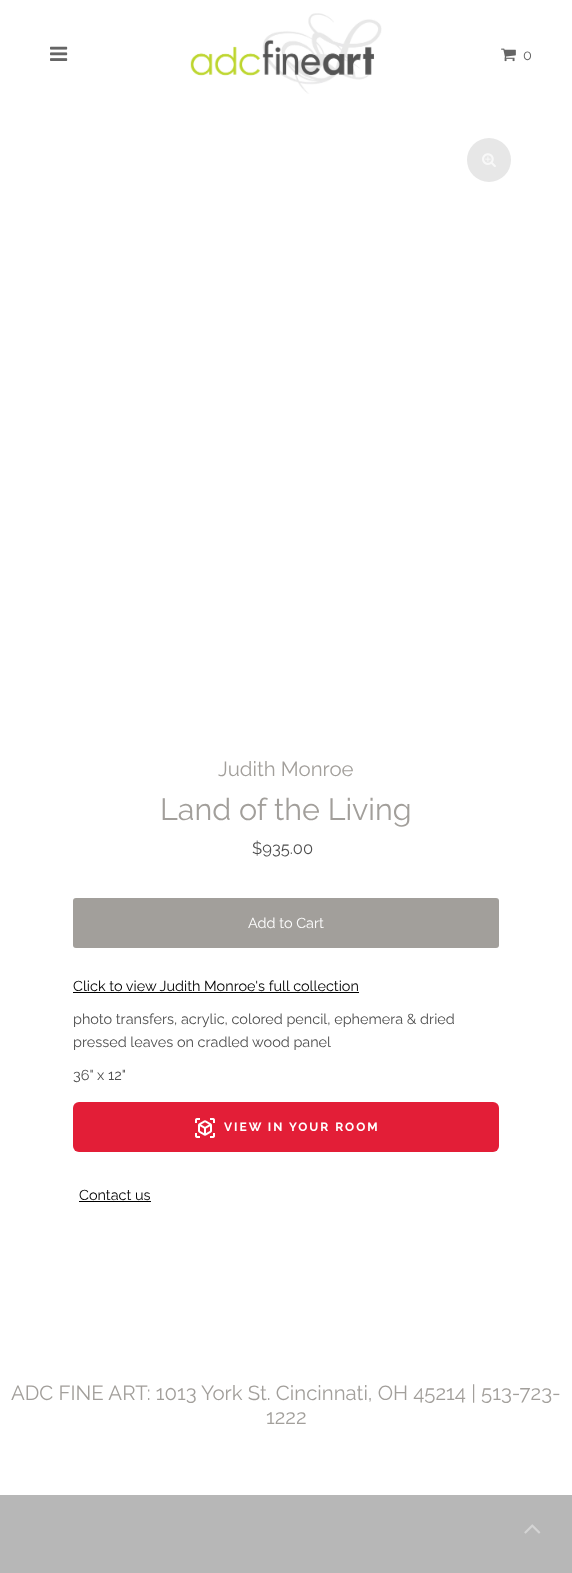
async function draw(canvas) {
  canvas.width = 572;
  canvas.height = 1573;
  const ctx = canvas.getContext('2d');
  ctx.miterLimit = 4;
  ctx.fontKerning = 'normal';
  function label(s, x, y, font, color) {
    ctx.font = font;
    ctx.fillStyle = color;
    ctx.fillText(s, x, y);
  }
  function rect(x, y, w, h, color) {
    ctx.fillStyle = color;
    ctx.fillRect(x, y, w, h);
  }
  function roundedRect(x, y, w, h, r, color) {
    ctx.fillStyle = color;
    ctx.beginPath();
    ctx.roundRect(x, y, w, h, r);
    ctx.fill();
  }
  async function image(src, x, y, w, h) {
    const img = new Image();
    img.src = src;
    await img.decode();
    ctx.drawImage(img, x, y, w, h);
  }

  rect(0, 0, 572, 1573, '#fff');
  await image('assets/img1.png', 50, 46, 18, 15);
  await image('assets/img2.png', 190, 13, 192, 81);
  await image('assets/img3.png', 501, 48, 15, 14);
  label('0', 523, 60, '14.45px Raleway', '#656565');
  ctx.fillStyle = '#e7e7e7';
  ctx.beginPath();
  ctx.arc(489, 160, 22, 0, 2 * Math.PI);
  ctx.fill();
  await image('assets/img4.png', 482, 153, 14, 14);
  label('Judith Monroe', 218, 776, '20.4px Raleway', '#a29f9b');
  label('Land of the Living', 160, 820, '30.5px Raleway', '#a29f9b');
  label('$935.00', 252, 854, '16.5px Raleway', '#4e4e4e');
  roundedRect(73, 898, 426, 50, 3, '#a29f9b');
  label('Add to Cart', 248, 928, '14.45px Raleway', '#fff');
  label('Click to view Judith Monroe\'s full collection', 73, 991, '14.45px Raleway', '#000');
  rect(73, 992, 286, 1, '#000');
  label('photo transfers, acrylic, colored pencil, ephemera & dried', 73, 1024, '14.45px Raleway', '#4e4e4e');
  label('pressed leaves on cradled wood panel', 73, 1047, '14.45px Raleway', '#4e4e4e');
  label('36" x 12"', 73, 1080, '14.45px Raleway', '#4e4e4e');
  roundedRect(73, 1102, 426, 50, 6, '#e31e37');
  await image('assets/img5.png', 195, 1118, 20, 20);
  ctx.letterSpacing = '2px';
  label('VIEW IN YOUR ROOM', 224, 1131, 'bold 12px Raleway', '#fff');
  ctx.letterSpacing = '0px';
  label('Contact us', 79, 1200, '14.45px Raleway', '#000');
  rect(79, 1201, 72, 1, '#000');
  label('ADC FINE ART: 1013 York St. Cincinnati, OH 45214 | 513-723-', 11, 1400, '20.4px Raleway', '#a29f9b');
  label('1222', 266, 1424, '20.4px Raleway', '#a29f9b');
  rect(0, 1495, 572, 78, '#b7b7b7');
  await image('assets/img6.png', 524, 1524, 17, 10);
}

draw(document.querySelector('canvas'));
